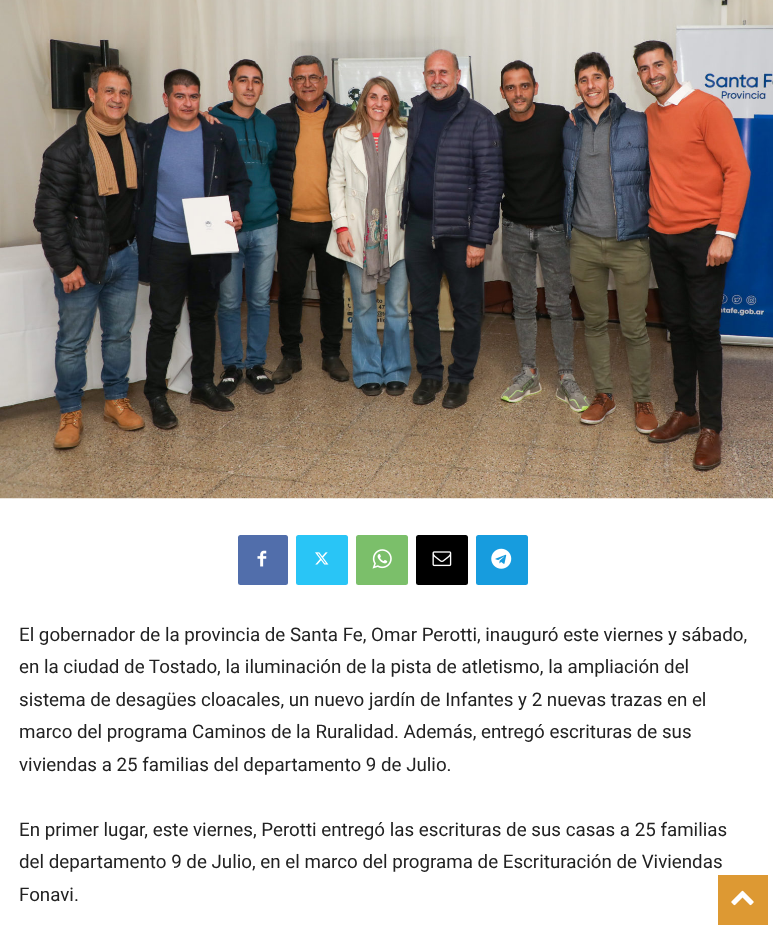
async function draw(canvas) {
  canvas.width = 773;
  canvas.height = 929;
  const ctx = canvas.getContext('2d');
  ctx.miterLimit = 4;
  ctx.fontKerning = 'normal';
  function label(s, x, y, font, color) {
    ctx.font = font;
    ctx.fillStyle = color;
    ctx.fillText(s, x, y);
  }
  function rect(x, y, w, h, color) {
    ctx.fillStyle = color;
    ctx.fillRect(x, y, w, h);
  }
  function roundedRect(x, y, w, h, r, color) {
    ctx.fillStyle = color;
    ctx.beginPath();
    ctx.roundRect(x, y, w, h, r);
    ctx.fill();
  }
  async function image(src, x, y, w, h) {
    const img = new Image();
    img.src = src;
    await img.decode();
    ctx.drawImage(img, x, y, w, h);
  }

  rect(0, 0, 773, 929, '#fff');
  await image('assets/img1.png', 0, 0, 773, 499);
  roundedRect(238, 535, 50, 50, 2.5, '#516eab');
  await image('assets/img2.png', 257, 550, 10, 17);
  roundedRect(296, 535, 52, 50, 2.5, '#29c5f6');
  await image('assets/img3.png', 315, 552, 14, 13);
  roundedRect(356, 535, 52, 50, 2.5, '#7bbf6a');
  await image('assets/img4.png', 372, 549, 20, 20);
  roundedRect(416, 535, 52, 50, 2.5, '#000');
  await image('assets/img5.png', 432, 551, 20, 16);
  roundedRect(476, 535, 52, 50, 2.5, '#179cde');
  await image('assets/img6.png', 491, 548, 21, 21);
  label('El gobernador de la provincia de Santa Fe, Omar Perotti, inauguró este viernes y sábado,', 19, 641, '18.75px Roboto', '#222');
  label('en la ciudad de Tostado, la iluminación de la pista de atletismo, la ampliación del', 19, 673, '18.75px Roboto', '#222');
  label('sistema de desagües cloacales, un nuevo jardín de Infantes y 2 nuevas trazas en el', 19, 706, '18.75px Roboto', '#222');
  label('marco del programa Caminos de la Ruralidad. Además, entregó escrituras de sus', 19, 738, '18.75px Roboto', '#222');
  label('viviendas a 25 familias del departamento 9 de Julio.', 19, 771, '18.75px Roboto', '#222');
  label('En primer lugar, este viernes, Perotti entregó las escrituras de sus casas a 25 familias', 19, 836, '18.75px Roboto', '#222');
  label('del departamento 9 de Julio, en el marco del programa de Escrituración de Viviendas', 19, 868, '18.75px Roboto', '#222');
  label('Fonavi.', 19, 901, '18.75px Roboto', '#222');
  rect(718, 875, 50, 50, '#d93');
  await image('assets/img7.png', 731, 890, 23, 16);
}

draw(document.querySelector('canvas'));
